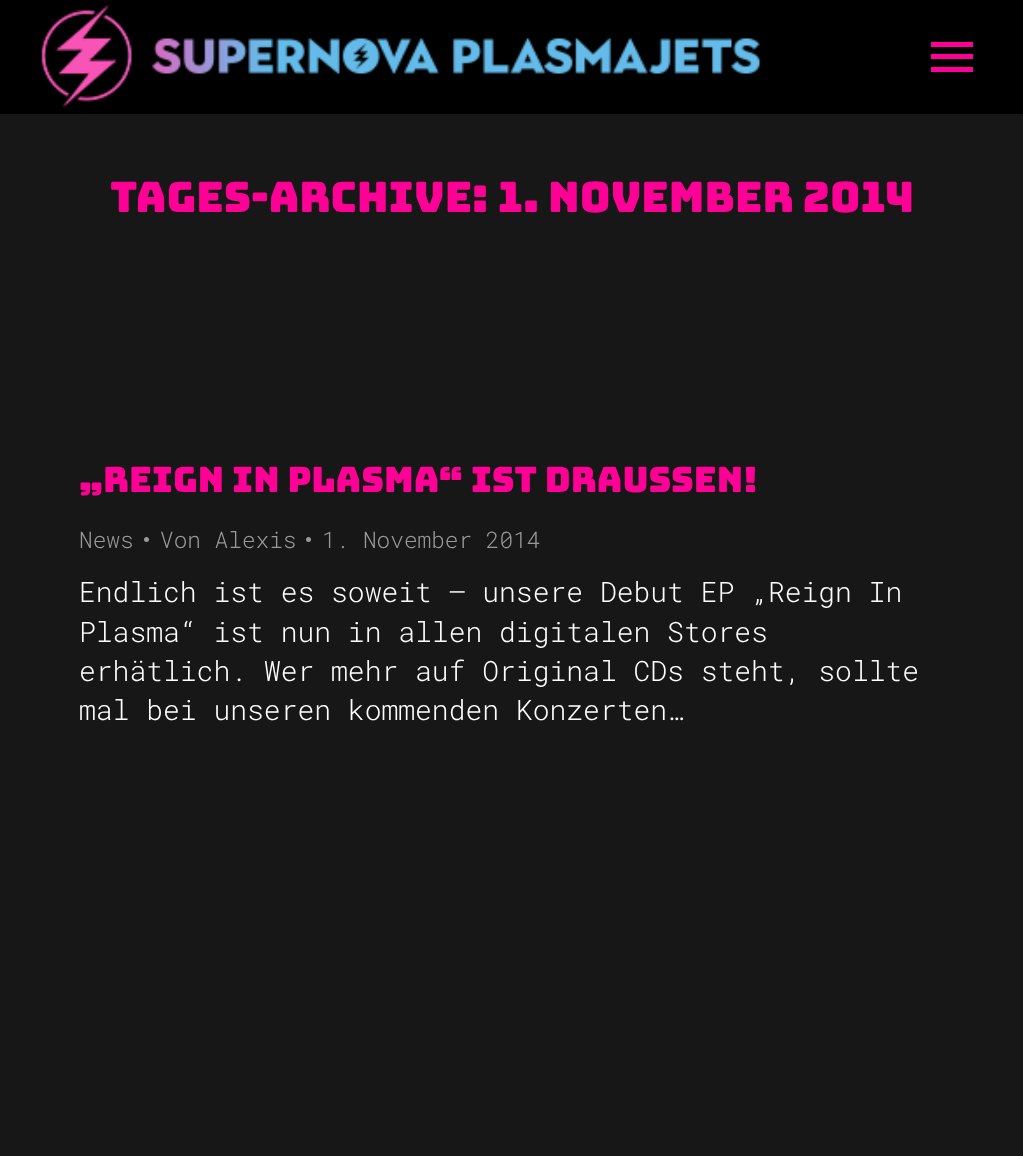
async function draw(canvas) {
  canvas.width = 1023;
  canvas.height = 1156;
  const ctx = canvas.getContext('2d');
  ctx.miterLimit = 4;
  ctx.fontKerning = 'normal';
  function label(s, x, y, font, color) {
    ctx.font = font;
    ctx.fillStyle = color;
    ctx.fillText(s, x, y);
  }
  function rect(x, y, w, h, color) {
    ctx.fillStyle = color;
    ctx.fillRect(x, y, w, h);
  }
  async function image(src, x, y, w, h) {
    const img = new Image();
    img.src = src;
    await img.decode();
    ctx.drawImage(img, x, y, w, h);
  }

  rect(0, 0, 1023, 1156, '#171717');
  rect(0, 0, 1023, 114, '#000');
  await image('assets/img1.png', 41, 5, 719, 103);
  rect(931, 42, 42, 5, '#ff0096');
  rect(931, 54, 42, 5, '#ff0096');
  rect(931, 67, 42, 5, '#ff0096');
  label('Tages-Archive: 1. November 2014', 110, 212, '42px Bungee', '#ff0096');
  label('„Reign In Plasma“ ist draussen!', 79, 492, '35px Bungee', '#ff0096');
  label('News', 79, 548, '300 22.75px Roboto Mono', '#999');
  ctx.beginPath();
  ctx.arc(146.5, 539.5, 2.5, 0, 2 * Math.PI);
  ctx.fill();
  label('Von Alexis', 160, 548, '300 22.75px Roboto Mono', '#999');
  ctx.beginPath();
  ctx.arc(308.5, 539.5, 2.5, 0, 2 * Math.PI);
  ctx.fill();
  label('1. November 2014', 322, 548, '300 22.75px Roboto Mono', '#999');
  label('Endlich ist es soweit – unsere Debut EP „Reign In', 79, 602, '300 28px Roboto Mono', '#fff');
  label('Plasma“ ist nun in allen digitalen Stores', 79, 642, '300 28px Roboto Mono', '#fff');
  label('erhätlich. Wer mehr auf Original CDs steht, sollte', 79, 681, '300 28px Roboto Mono', '#fff');
  label('mal bei unseren kommenden Konzerten…', 79, 720, '300 28px Roboto Mono', '#fff');
}

draw(document.querySelector('canvas'));
